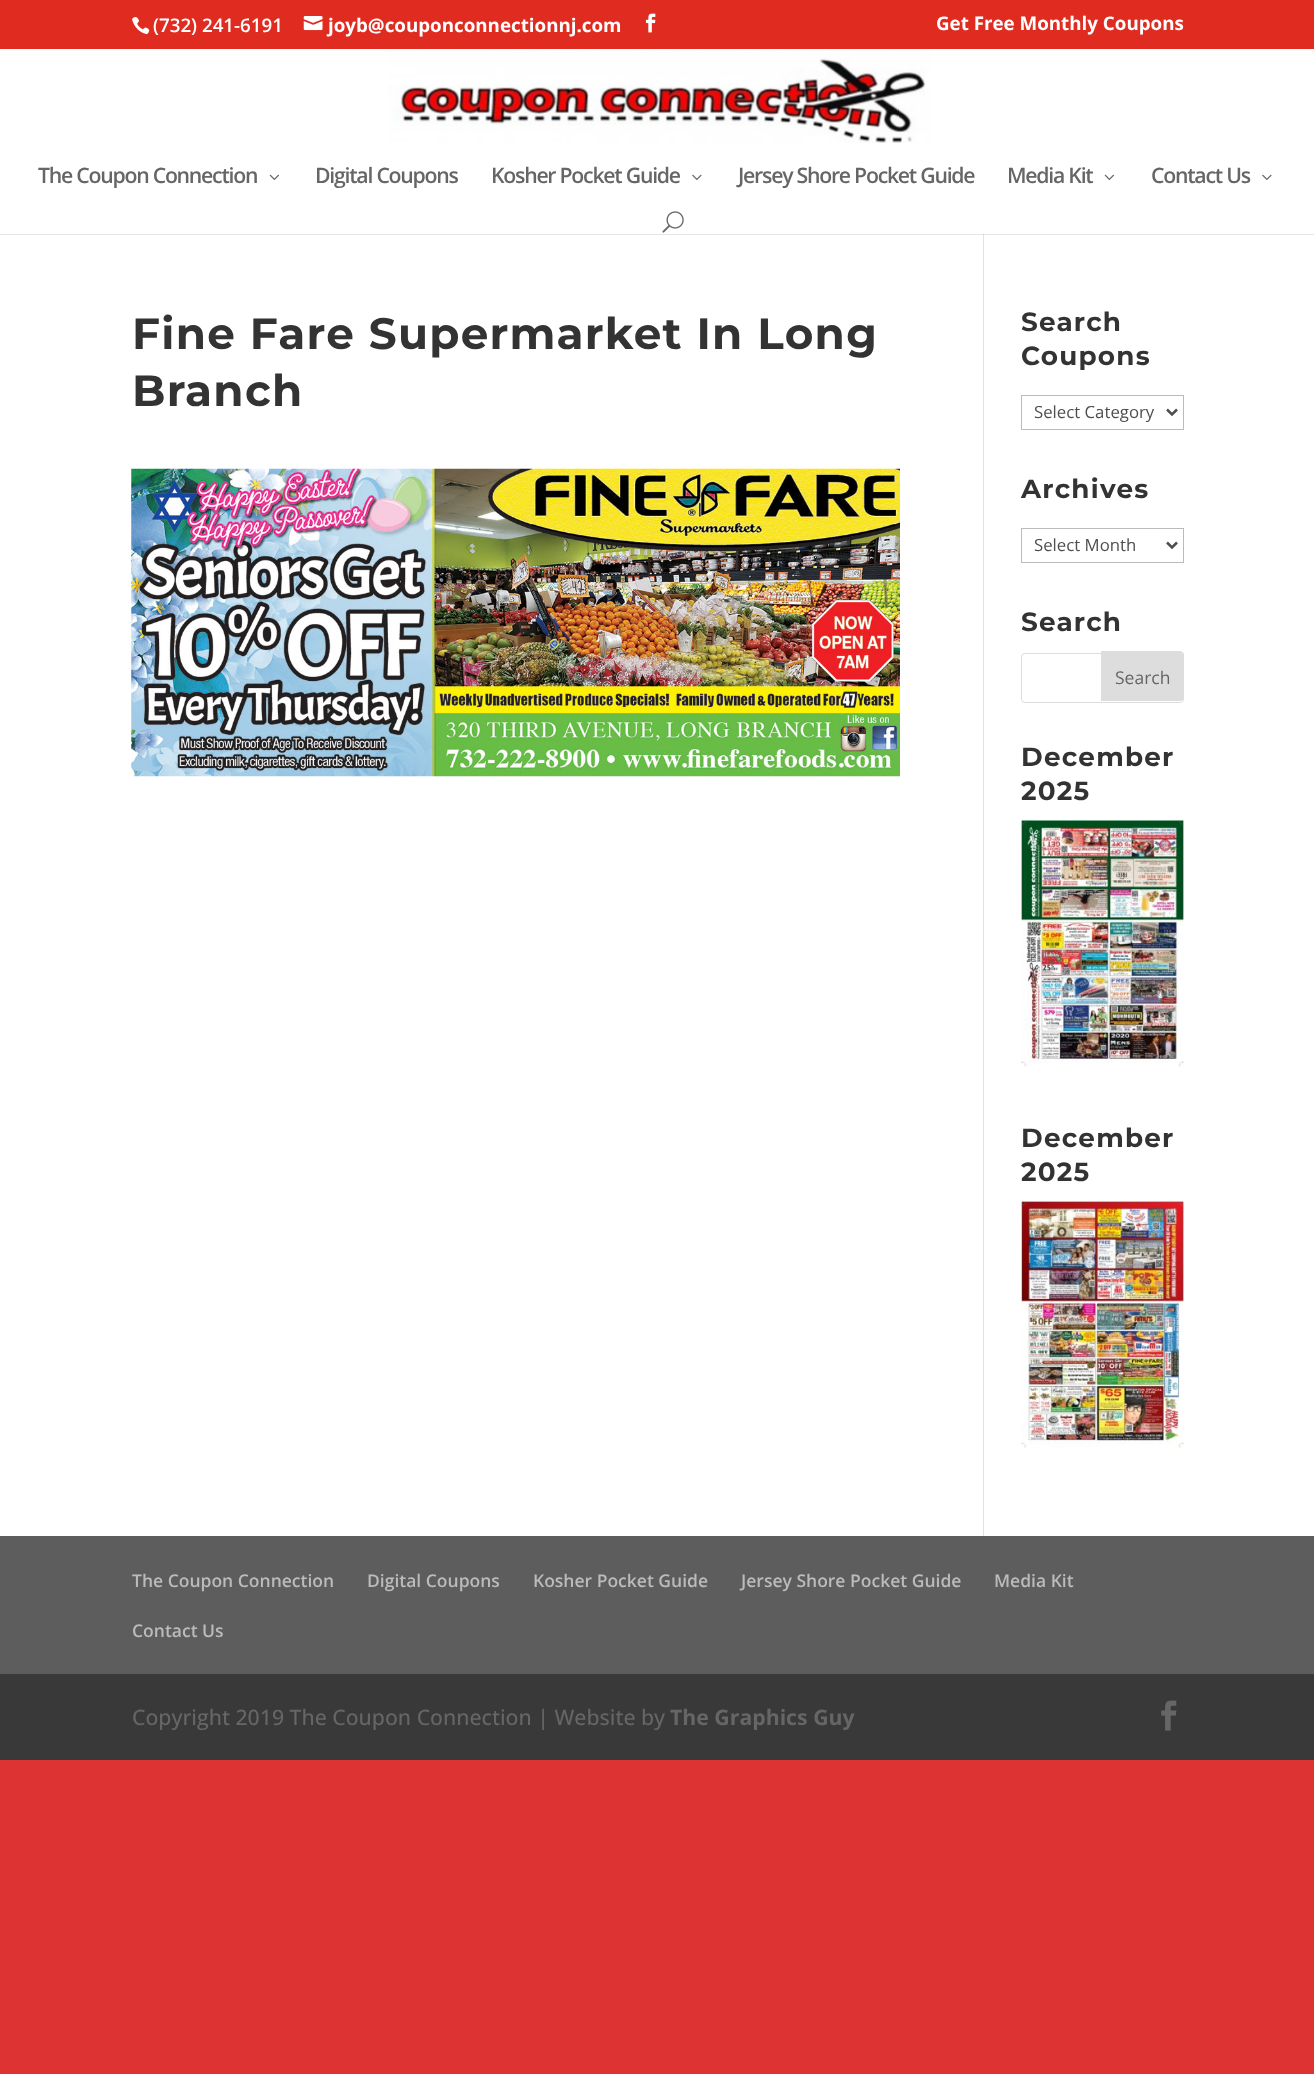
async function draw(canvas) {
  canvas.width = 1314;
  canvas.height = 2074;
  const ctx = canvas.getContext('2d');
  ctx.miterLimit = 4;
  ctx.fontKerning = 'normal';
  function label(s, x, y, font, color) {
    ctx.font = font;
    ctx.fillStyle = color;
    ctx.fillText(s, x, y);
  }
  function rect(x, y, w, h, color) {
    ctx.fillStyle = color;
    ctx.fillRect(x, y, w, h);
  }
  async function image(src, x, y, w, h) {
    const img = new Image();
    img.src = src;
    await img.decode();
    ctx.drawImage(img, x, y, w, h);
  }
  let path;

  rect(0, 0, 1314, 2074, '#d33');
  rect(0, 0, 1314, 49, '#e02b20');
  await image('assets/img1.png', 132, 17, 18, 18);
  label('(732) 241-6191', 153, 32, '600 18.75px Open Sans', '#fff');
  await image('assets/img2.png', 303, 16, 20, 15);
  label('joyb@couponconnectionnj.com', 328, 32, 'bold 18.75px Open Sans', '#fff');
  await image('assets/img3.png', 645, 13, 11, 20);
  label('Get Free Monthly Coupons', 936, 30, 'bold 18.75px Open Sans', '#fff');
  rect(0, 235, 1314, 1301, '#fff');
  rect(0, 234, 1314, 1, '#e6e6e6');
  rect(983, 233, 1, 1303, '#e2e2e2');
  rect(0, 49, 1314, 185, '#fff');
  await image('assets/img4.png', 388, 49, 543, 94);
  ctx.letterSpacing = '-1.25px';
  label('The Coupon Connection', 38, 183, '600 21.25px Open Sans', '#666');
  await image('assets/img5.png', 269, 174, 10, 6);
  label('Digital Coupons', 315, 183, '600 21.25px Open Sans', '#666');
  label('Kosher Pocket Guide', 491, 183, '600 21.25px Open Sans', '#666');
  await image('assets/img6.png', 692, 174, 10, 6);
  label('Jersey Shore Pocket Guide', 738, 183, '600 21.25px Open Sans', '#666');
  label('Media Kit', 1007, 183, '600 21.25px Open Sans', '#666');
  await image('assets/img5.png', 1104, 174, 10, 6);
  label('Contact Us', 1151, 183, '600 21.25px Open Sans', '#666');
  await image('assets/img6.png', 1262, 174, 10, 6);
  await image('assets/img7.png', 662, 211, 22, 22);
  rect(983, 234, 1, 1, '#cbcbcb');
  ctx.letterSpacing = '1.25px';
  label('Fine Fare Supermarket In Long', 132, 349, 'bold 43.75px Montserrat', '#333');
  label('Branch', 132, 406, 'bold 43.75px Montserrat', '#333');
  await image('assets/img8.png', 131, 468, 769, 309);
  label('Search', 1021, 331, 'bold 26.25px Montserrat', '#333');
  label('Coupons', 1021, 365, 'bold 26.25px Montserrat', '#333');
  ctx.strokeStyle = '#bbb';
  ctx.strokeRect(1021.5, 395.5, 162, 34);
  path = new Path2D('M1167 409.5L1172 414.5L1177 409.5');
  ctx.strokeStyle = '#4e4e4e';
  ctx.lineWidth = 2.5;
  ctx.stroke(path);
  ctx.letterSpacing = '0px';
  label('Select Category', 1034, 418, '16.75px Open Sans', '#4e4e4e');
  ctx.letterSpacing = '1.25px';
  label('Archives', 1021, 498, 'bold 26.25px Montserrat', '#333');
  ctx.strokeStyle = '#bbb';
  ctx.lineWidth = 1;
  ctx.strokeRect(1021.5, 528.5, 162, 34);
  path = new Path2D('M1167 542.5L1172 547.5L1177 542.5');
  ctx.strokeStyle = '#4e4e4e';
  ctx.lineWidth = 2.5;
  ctx.stroke(path);
  ctx.letterSpacing = '0px';
  label('Select Month', 1034, 551, '16.75px Open Sans', '#4e4e4e');
  ctx.letterSpacing = '1.25px';
  label('Search', 1021, 631, 'bold 26.25px Montserrat', '#333');
  ctx.beginPath();
  ctx.roundRect(1021.5, 653.5, 162, 49, 3.5);
  ctx.strokeStyle = '#ddd';
  ctx.lineWidth = 1;
  ctx.stroke();
  ctx.fillStyle = '#ddd';
  ctx.beginPath();
  ctx.roundRect(1101.5, 651.5, 82, 49, [0, 3.5, 3.5, 0]);
  ctx.fill();
  ctx.stroke();
  ctx.letterSpacing = '0px';
  label('Search', 1115, 684, '17.5px Open Sans', '#666');
  ctx.letterSpacing = '1.25px';
  label('December', 1021, 766, 'bold 26.25px Montserrat', '#333');
  label('2025', 1021, 800, 'bold 26.25px Montserrat', '#333');
  await image('assets/img9.png', 1021, 820, 163, 247);
  label('December', 1021, 1147, 'bold 26.25px Montserrat', '#333');
  label('2025', 1021, 1181, 'bold 26.25px Montserrat', '#333');
  await image('assets/img10.png', 1021, 1201, 163, 247);
  rect(0, 1536, 1314, 138, '#5d5d5d');
  ctx.letterSpacing = '0px';
  label('The Coupon Connection', 132, 1587, '600 17.5px Open Sans', '#bbb');
  label('Digital Coupons', 367, 1587, '600 17.5px Open Sans', '#bbb');
  label('Kosher Pocket Guide', 533, 1587, '600 17.5px Open Sans', '#bbb');
  label('Jersey Shore Pocket Guide', 741, 1587, '600 17.5px Open Sans', '#bbb');
  label('Media Kit', 994, 1587, '600 17.5px Open Sans', '#bbb');
  label('Contact Us', 132, 1637, '600 17.5px Open Sans', '#bbb');
  rect(0, 1674, 1314, 86, '#393939');
  label('Copyright 2019 The Coupon Connection | Website by', 132, 1725, '500 21.25px Open Sans', '#666');
  label('The Graphics Guy', 670, 1725, 'bold 21.25px Open Sans', '#666');
  await image('assets/img11.png', 1161, 1700, 16, 31);
}

draw(document.querySelector('canvas'));
